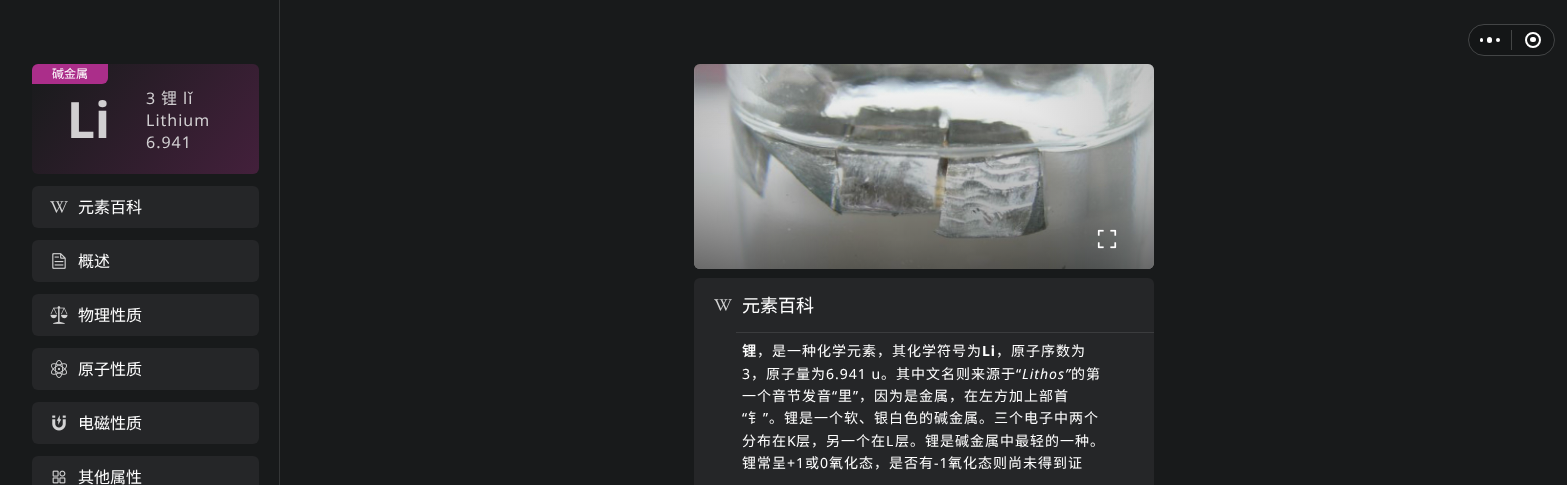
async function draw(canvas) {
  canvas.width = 1567;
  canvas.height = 485;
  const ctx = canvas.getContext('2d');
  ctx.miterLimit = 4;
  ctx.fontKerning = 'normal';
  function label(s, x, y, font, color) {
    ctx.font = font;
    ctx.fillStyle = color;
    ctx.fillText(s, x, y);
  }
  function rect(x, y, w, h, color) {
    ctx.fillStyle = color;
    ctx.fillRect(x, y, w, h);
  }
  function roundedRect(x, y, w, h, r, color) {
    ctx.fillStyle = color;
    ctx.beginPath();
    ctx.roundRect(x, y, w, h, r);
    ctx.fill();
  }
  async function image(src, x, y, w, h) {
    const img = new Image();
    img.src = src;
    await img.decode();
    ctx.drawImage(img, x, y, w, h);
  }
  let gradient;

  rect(0, 0, 1567, 485, '#181a1b');
  ctx.fillStyle = '#141617';
  ctx.beginPath();
  ctx.roundRect(1468.5, 24.5, 86, 31, 15.5);
  ctx.fill();
  ctx.strokeStyle = '#434546';
  ctx.stroke();
  roundedRect(1487, 37, 5, 6, 2.5, '#fff');
  roundedRect(1480, 38, 3, 4, 1.5, '#fff');
  ctx.beginPath();
  ctx.arc(1498, 40, 2, 0, 2 * Math.PI);
  ctx.fill();
  rect(1511, 30, 1, 20, '#434545');
  ctx.beginPath();
  ctx.arc(1533, 40, 7, 0, 2 * Math.PI);
  ctx.strokeStyle = '#fff';
  ctx.lineWidth = 2;
  ctx.stroke();
  roundedRect(1530, 37, 6, 5, 2.5, '#fff');
  rect(279, 0, 1, 485, '#343637');
  gradient = ctx.createLinearGradient(248, 197, 47, 44);
  gradient.addColorStop(0, '#44203c');
  gradient.addColorStop(0.98, '#191b1c');
  ctx.fillStyle = gradient;
  ctx.beginPath();
  ctx.roundRect(32, 64, 227, 110, 6);
  ctx.fill();
  ctx.fillStyle = '#ab2e8a';
  ctx.beginPath();
  ctx.roundRect(32, 64, 76, 20, [6, 0, 6, 0]);
  ctx.fill();
  label('碱金属', 52, 78, '12px Noto Sans CJK SC', '#fff');
  label('Li', 67, 138, 'bold 50px Noto Sans', '#d1cfd1');
  ctx.letterSpacing = '1px';
  label('3', 146, 104, '16px Noto Sans', '#d1cfd1');
  label('锂', 161, 104, '16px Noto Sans CJK SC', '#d1cfd1');
  label('lǐ', 183, 104, '16px Noto Sans', '#d1cfd1');
  label('Lithium', 146, 126, '16px Noto Sans', '#d1cfd1');
  label('6.941', 146, 148, '16px Noto Sans', '#d1cfd1');
  roundedRect(32, 186, 227, 42, 6, '#252628');
  await image('assets/img1.png', 50, 201, 18, 12);
  ctx.letterSpacing = '0px';
  label('元素百科', 78, 213, '16px Noto Sans CJK SC', '#fff');
  roundedRect(32, 240, 227, 42, 6, '#252628');
  await image('assets/img2.png', 52, 253, 14, 16);
  label('概述', 78, 267, '16px Noto Sans CJK SC', '#fff');
  roundedRect(32, 294, 227, 42, 6, '#252628');
  await image('assets/img3.png', 50, 306, 18, 18);
  label('物理性质', 78, 321, '16px Noto Sans CJK SC', '#fff');
  roundedRect(32, 348, 227, 42, 6, '#252628');
  await image('assets/img4.png', 51, 360, 16, 18);
  label('原子性质', 78, 375, '16px Noto Sans CJK SC', '#fff');
  roundedRect(32, 402, 227, 42, 6, '#252628');
  await image('assets/img5.png', 52, 415, 14, 16);
  label('电磁性质', 78, 429, '16px Noto Sans CJK SC', '#fff');
  ctx.fillStyle = '#252628';
  ctx.beginPath();
  ctx.roundRect(32, 456, 227, 29, [6, 6, 0, 0]);
  ctx.fill();
  await image('assets/img6.png', 52, 470, 14, 14);
  label('其他属性', 78, 483, '16px Noto Sans CJK SC', '#fff');
  await image('assets/img7.png', 694, 64, 460, 205);
  gradient = ctx.createRadialGradient(924, 374.31, 0, 924, 374.31, 325);
  gradient.addColorStop(0, '#00000000');
  gradient.addColorStop(0.5, '#00000000');
  gradient.addColorStop(1, '#00000040');
  ctx.fillStyle = gradient;
  ctx.beginPath();
  ctx.roundRect(694, 64, 460, 205, 6);
  ctx.save();
  ctx.clip();
  ctx.scale(1, 145 / 325);
  ctx.fillRect(0, 0, 1567, 1088);
  ctx.restore();
  gradient = ctx.createLinearGradient(924, 269, 924, 64);
  gradient.addColorStop(0, '#00000073');
  gradient.addColorStop(0.5, '#00000033');
  gradient.addColorStop(1, '#00000000');
  ctx.fillStyle = gradient;
  ctx.beginPath();
  ctx.roundRect(694, 64, 460, 205, 6);
  ctx.fill();
  await image('assets/img8.png', 1097, 229, 20, 20);
  ctx.fillStyle = '#252628';
  ctx.beginPath();
  ctx.roundRect(694, 278, 460, 207, [6, 6, 0, 0]);
  ctx.fill();
  await image('assets/img1.png', 714, 299, 18, 12);
  label('元素百科', 742, 312, '18px Noto Sans CJK SC', '#fff');
  rect(736, 332, 418, 1, '#3b3c3e');
  ctx.letterSpacing = '1px';
  label('锂', 742, 356, 'bold 14px Noto Sans CJK SC', '#fff');
  label('，是一种化学元素，其化学符号为', 757, 356, '14px Noto Sans CJK SC', '#fff');
  label('Li', 982, 356, 'bold 14px Noto Sans', '#fff');
  label('，原子序数为', 996, 356, '14px Noto Sans CJK SC', '#fff');
  label('3', 742, 379, '14px Noto Sans', '#fff');
  label('，原子量为', 751, 379, '14px Noto Sans CJK SC', '#fff');
  label('6.941 u', 826, 379, '14px Noto Sans', '#fff');
  label('。其中文名则来源于', 881, 379, '14px Noto Sans CJK SC', '#fff');
  label('“', 1016, 379, '14px Noto Sans', '#fff');
  label('Lithos”', 1022, 379, 'italic 14px Noto Sans', '#fff');
  label('的第', 1071, 379, '14px Noto Sans CJK SC', '#fff');
  label('一个音节发音', 742, 401, '14px Noto Sans CJK SC', '#fff');
  label('“', 832, 401, '14px Noto Sans', '#fff');
  label('里', 838, 401, '14px Noto Sans CJK SC', '#fff');
  label('”', 853, 401, '14px Noto Sans', '#fff');
  label('，因为是金属，在左方加上部首', 859, 401, '14px Noto Sans CJK SC', '#fff');
  label('“', 742, 423, '14px Noto Sans', '#fff');
  label('钅', 748, 423, '14px Noto Sans CJK SC', '#fff');
  label('”', 763, 423, '14px Noto Sans', '#fff');
  label('。锂是一个软、银白色的碱金属。三个电子中两个', 769, 423, '14px Noto Sans CJK SC', '#fff');
  label('分布在', 742, 446, '14px Noto Sans CJK SC', '#fff');
  label('K', 787, 446, '14px Noto Sans', '#fff');
  label('层，另一个在', 796, 446, '14px Noto Sans CJK SC', '#fff');
  label('L', 886, 446, '14px Noto Sans', '#fff');
  label('层。锂是碱金属中最轻的一种。', 895, 446, '14px Noto Sans CJK SC', '#fff');
  label('锂常呈', 742, 468, '14px Noto Sans CJK SC', '#fff');
  label('+1', 787, 468, '14px Noto Sans', '#fff');
  label('或', 805, 468, '14px Noto Sans CJK SC', '#fff');
  label('0', 820, 468, '14px Noto Sans', '#fff');
  label('氧化态，是否有', 829, 468, '14px Noto Sans CJK SC', '#fff');
  label('-1', 934, 468, '14px Noto Sans', '#fff');
  label('氧化态则尚未得到证', 948, 468, '14px Noto Sans CJK SC', '#fff');
}

draw(document.querySelector('canvas'));
